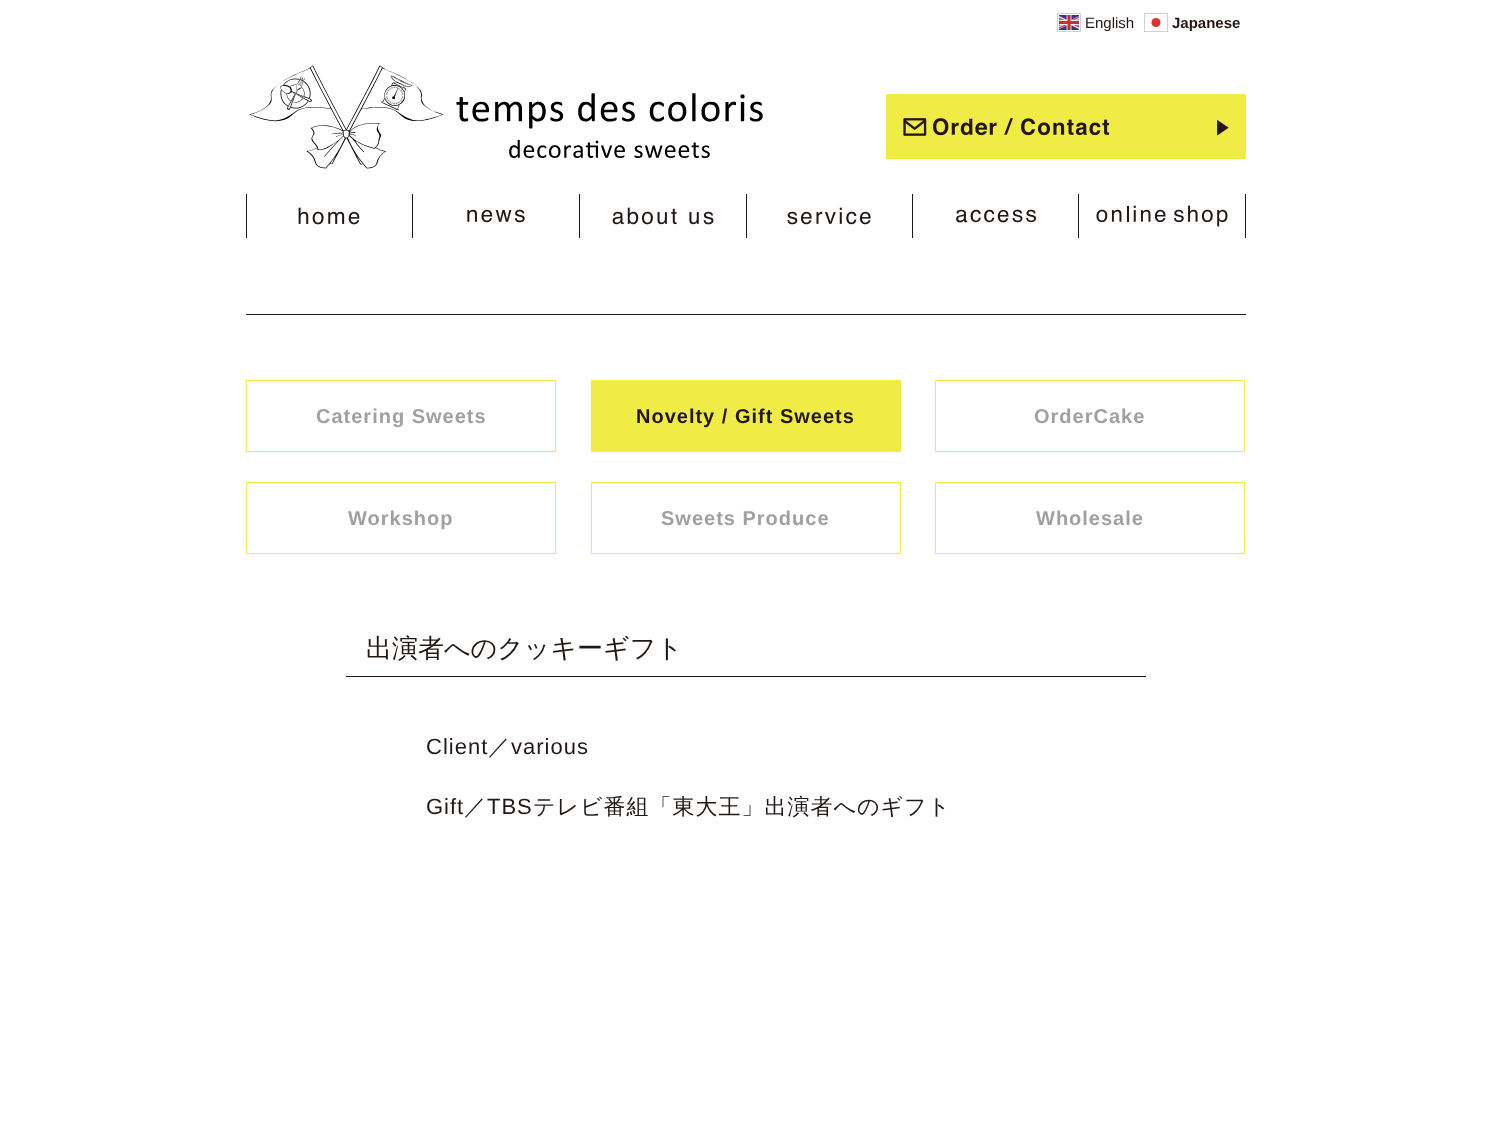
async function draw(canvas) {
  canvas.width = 1491;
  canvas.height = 1134;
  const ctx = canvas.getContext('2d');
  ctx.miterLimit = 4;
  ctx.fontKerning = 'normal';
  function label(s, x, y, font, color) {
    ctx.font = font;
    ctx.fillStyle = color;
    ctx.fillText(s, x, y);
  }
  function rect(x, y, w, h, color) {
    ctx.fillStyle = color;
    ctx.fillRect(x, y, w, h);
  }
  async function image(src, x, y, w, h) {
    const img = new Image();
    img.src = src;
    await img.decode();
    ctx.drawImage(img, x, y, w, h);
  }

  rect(0, 0, 1491, 1134, '#fff');
  ctx.strokeStyle = '#d1d1d1';
  ctx.strokeRect(1057.5, 13.5, 23, 18);
  await image('assets/img1.png', 1059, 15, 20, 15);
  label('English', 1085, 28, '15px Liberation Sans', '#231815');
  label('Japanese', 1172, 28, 'bold 15px Liberation Sans', '#231815');
  ctx.strokeRect(1144.5, 13.5, 23, 18);
  ctx.fillStyle = '#dc3333';
  ctx.beginPath();
  ctx.arc(1156, 22.5, 4.5, 0, 2 * Math.PI);
  ctx.fill();
  await image('assets/img2.png', 249, 65, 514, 104);
  rect(886, 94, 360, 65, '#f0eb45');
  await image('assets/img3.png', 903, 118, 326, 18);
  rect(246, 194, 1, 44, '#231815');
  await image('assets/img4.png', 298, 207, 62, 18);
  rect(412, 194, 1, 44, '#231815');
  await image('assets/img5.png', 467, 209, 58, 14);
  rect(579, 194, 1, 44, '#231815');
  await image('assets/img6.png', 612, 207, 102, 18);
  rect(746, 194, 1, 44, '#231815');
  await image('assets/img7.png', 787, 207, 84, 18);
  rect(912, 194, 1, 44, '#231815');
  await image('assets/img8.png', 956, 209, 80, 14);
  rect(1245, 194, 1, 44, '#231815');
  rect(1078, 194, 1, 44, '#231815');
  await image('assets/img9.png', 1096, 205, 132, 22);
  rect(246, 314, 1000, 1, '#231815');
  ctx.strokeStyle = '#f0eb45';
  ctx.strokeRect(246.5, 380.5, 309, 71);
  ctx.letterSpacing = '1px';
  label('Catering Sweets', 316, 423, 'bold 20px Liberation Sans', '#9fa0a0');
  rect(591, 380, 310, 72, '#f0eb45');
  label('Novelty / Gift Sweets', 636, 423, 'bold 20px Liberation Sans', '#231815');
  ctx.strokeRect(935.5, 380.5, 309, 71);
  label('OrderCake', 1034, 423, 'bold 20px Liberation Sans', '#9fa0a0');
  ctx.strokeRect(246.5, 482.5, 309, 71);
  label('Workshop', 348, 525, 'bold 20px Liberation Sans', '#9fa0a0');
  ctx.strokeRect(591.5, 482.5, 309, 71);
  label('Sweets Produce', 661, 525, 'bold 20px Liberation Sans', '#9fa0a0');
  ctx.strokeRect(935.5, 482.5, 309, 71);
  label('Wholesale', 1036, 525, 'bold 20px Liberation Sans', '#9fa0a0');
  rect(346, 676, 800, 1, '#231815');
  ctx.letterSpacing = '0px';
  label('出演者へのクッキーギフト', 366, 657, '500 26px WenQuanYi Zen Hei', '#231815');
  ctx.letterSpacing = '1px';
  label('Client', 426, 754, '22px Liberation Sans', '#231815');
  label('／', 488, 754, '500 22px WenQuanYi Zen Hei', '#231815');
  label('various', 511, 754, '22px Liberation Sans', '#231815');
  label('Gift', 426, 814, '22px Liberation Sans', '#231815');
  label('／', 464, 814, '500 22px WenQuanYi Zen Hei', '#231815');
  label('TBS', 487, 814, '22px Liberation Sans', '#231815');
  label('テレビ番組「東大王」出演者へのギフト', 533, 814, '500 22px WenQuanYi Zen Hei', '#231815');
}

draw(document.querySelector('canvas'));
